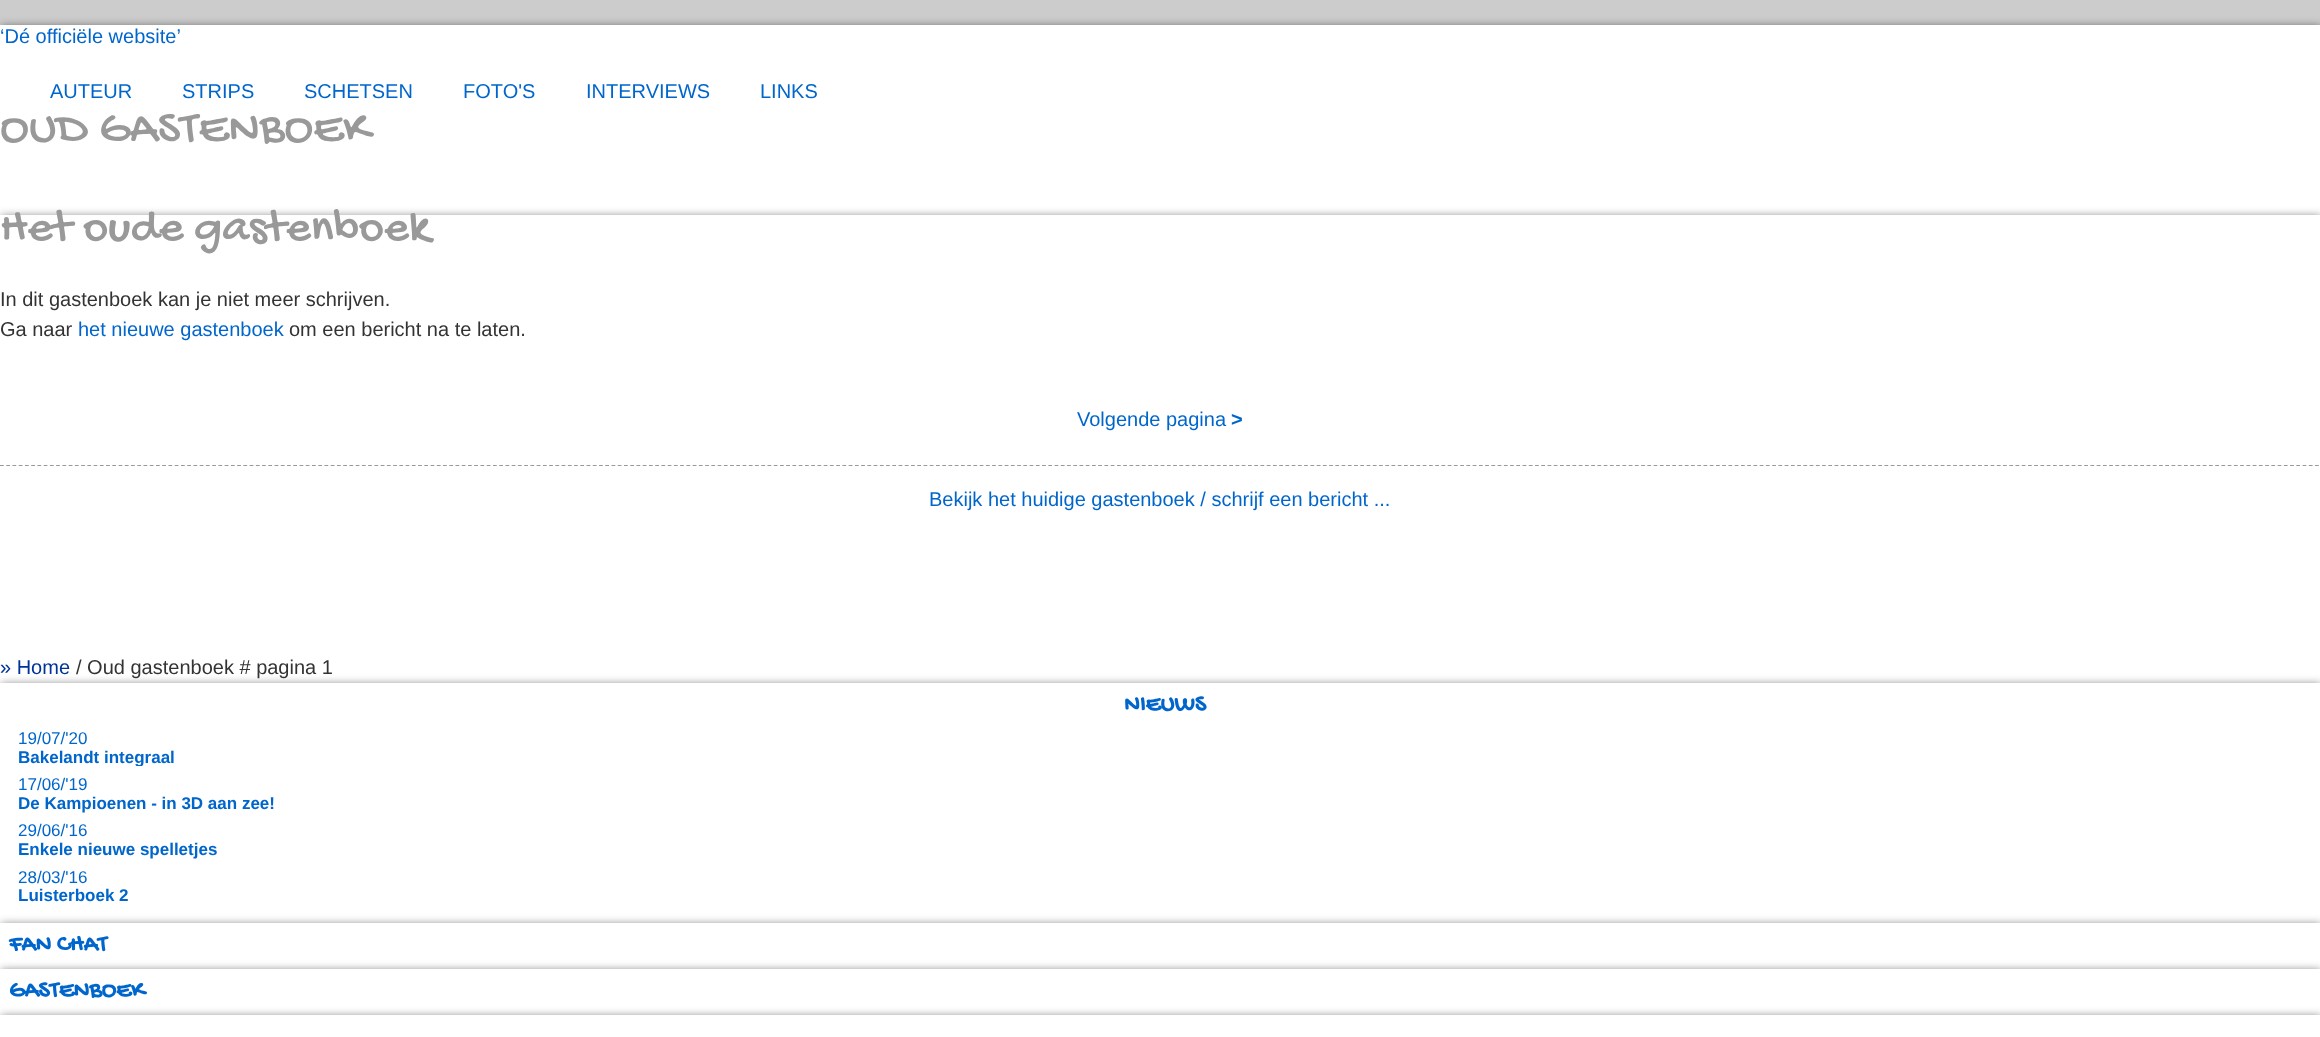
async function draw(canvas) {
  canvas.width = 2320;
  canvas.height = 1037;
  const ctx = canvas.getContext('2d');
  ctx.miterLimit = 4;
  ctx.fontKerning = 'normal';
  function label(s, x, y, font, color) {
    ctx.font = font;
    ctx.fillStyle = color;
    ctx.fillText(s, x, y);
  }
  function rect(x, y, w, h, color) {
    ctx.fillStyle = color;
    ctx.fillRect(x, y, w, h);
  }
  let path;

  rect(0, 0, 2320, 1037, '#ccc');
  ctx.fillStyle = '#00000080';
  ctx.filter = 'blur(4.5px)';
  ctx.beginPath();
  ctx.rect(1, 26, 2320, 190);
  ctx.fill();
  ctx.filter = 'none';
  rect(0, 25, 2320, 190, '#fff');
  label('‘Dé officiële website’', 0, 43, '20px Liberation Sans', '#06c');
  label('AUTEUR', 50, 98, '20px Liberation Sans', '#06c');
  label('STRIPS', 182, 98, '20px Liberation Sans', '#06c');
  label('SCHETSEN', 304, 98, '20px Liberation Sans', '#06c');
  label('FOTO\'S', 463, 98, '20px Liberation Sans', '#06c');
  label('INTERVIEWS', 586, 98, '20px Liberation Sans', '#06c');
  label('LINKS', 760, 98, '20px Liberation Sans', '#06c');
  label('OUD GASTENBOEK', 0, 140, '48px Gochi Hand', '#999');
  ctx.fillStyle = '#00000080';
  ctx.filter = 'blur(4.5px)';
  ctx.beginPath();
  ctx.rect(1, 216, 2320, 468);
  ctx.fill();
  ctx.filter = 'none';
  rect(0, 215, 2320, 468, '#fff');
  label('Het oude gastenboek', 0, 239, '48px Gochi Hand', '#999');
  label('In dit gastenboek kan je niet meer schrijven.', 0, 306, '20px Liberation Sans', '#333');
  label('Ga naar', 0, 336, '20px Liberation Sans', '#333');
  label('het nieuwe gastenboek', 78, 336, '20px Liberation Sans', '#06c');
  label('om een bericht na te laten.', 289, 336, '20px Liberation Sans', '#333');
  label('Volgende pagina', 1077, 426, '20px Liberation Sans', '#06c');
  label('>', 1231, 426, 'bold 20px Liberation Sans', '#06c');
  path = new Path2D('M0 465.5H2320');
  ctx.strokeStyle = '#999';
  ctx.lineWidth = 1.2;
  ctx.setLineDash([3.75, 2.49]);
  ctx.stroke(path);
  label('Bekijk het huidige gastenboek / schrijf een bericht ...', 929, 506, '20px Liberation Sans', '#06c');
  ctx.fillStyle = '#00000080';
  ctx.filter = 'blur(4.5px)';
  ctx.beginPath();
  ctx.rect(1, 684, 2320, 240);
  ctx.fill();
  ctx.filter = 'none';
  label('» Home', 0, 674, '20px Liberation Sans', '#039');
  label('/ Oud gastenboek # pagina 1', 76, 674, '20px Liberation Sans', '#333');
  rect(0, 683, 2320, 240, '#fff');
  label('NIEUWS', 1124, 710, 'bold 24px Gochi Hand', '#06c');
  label('19/07/\'20', 18, 744, '17px Liberation Sans', '#06c');
  ctx.save();
  ctx.beginPath();
  ctx.rect(18, 748, 2293, 18);
  ctx.clip();
  label('Bakelandt integraal', 18, 763, 'bold 17px Liberation Sans', '#06c');
  ctx.restore();
  label('17/06/\'19', 18, 790, '17px Liberation Sans', '#06c');
  label('De Kampioenen - in 3D aan zee!', 18, 809, 'bold 17px Liberation Sans', '#06c');
  label('29/06/\'16', 18, 836, '17px Liberation Sans', '#06c');
  label('Enkele nieuwe spelletjes', 18, 855, 'bold 17px Liberation Sans', '#06c');
  label('28/03/\'16', 18, 883, '17px Liberation Sans', '#06c');
  label('Luisterboek 2', 18, 901, 'bold 17px Liberation Sans', '#06c');
  ctx.fillStyle = '#00000080';
  ctx.filter = 'blur(4.5px)';
  ctx.beginPath();
  ctx.rect(1, 924, 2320, 46);
  ctx.fill();
  ctx.filter = 'none';
  rect(0, 923, 2320, 46, '#fff');
  label('FAN CHAT', 9, 950, 'bold 24px Gochi Hand', '#06c');
  ctx.fillStyle = '#00000080';
  ctx.filter = 'blur(4.5px)';
  ctx.beginPath();
  ctx.rect(1, 970, 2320, 46);
  ctx.fill();
  ctx.filter = 'none';
  rect(0, 969, 2320, 46, '#fff');
  label('GASTENBOEK', 9, 996, 'bold 24px Gochi Hand', '#06c');
  ctx.fillStyle = '#00000080';
  ctx.filter = 'blur(4.5px)';
  ctx.beginPath();
  ctx.rect(1, 1016, 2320, 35);
  ctx.fill();
  ctx.filter = 'none';
  rect(0, 1015, 2320, 22, '#fff');
}

draw(document.querySelector('canvas'));
